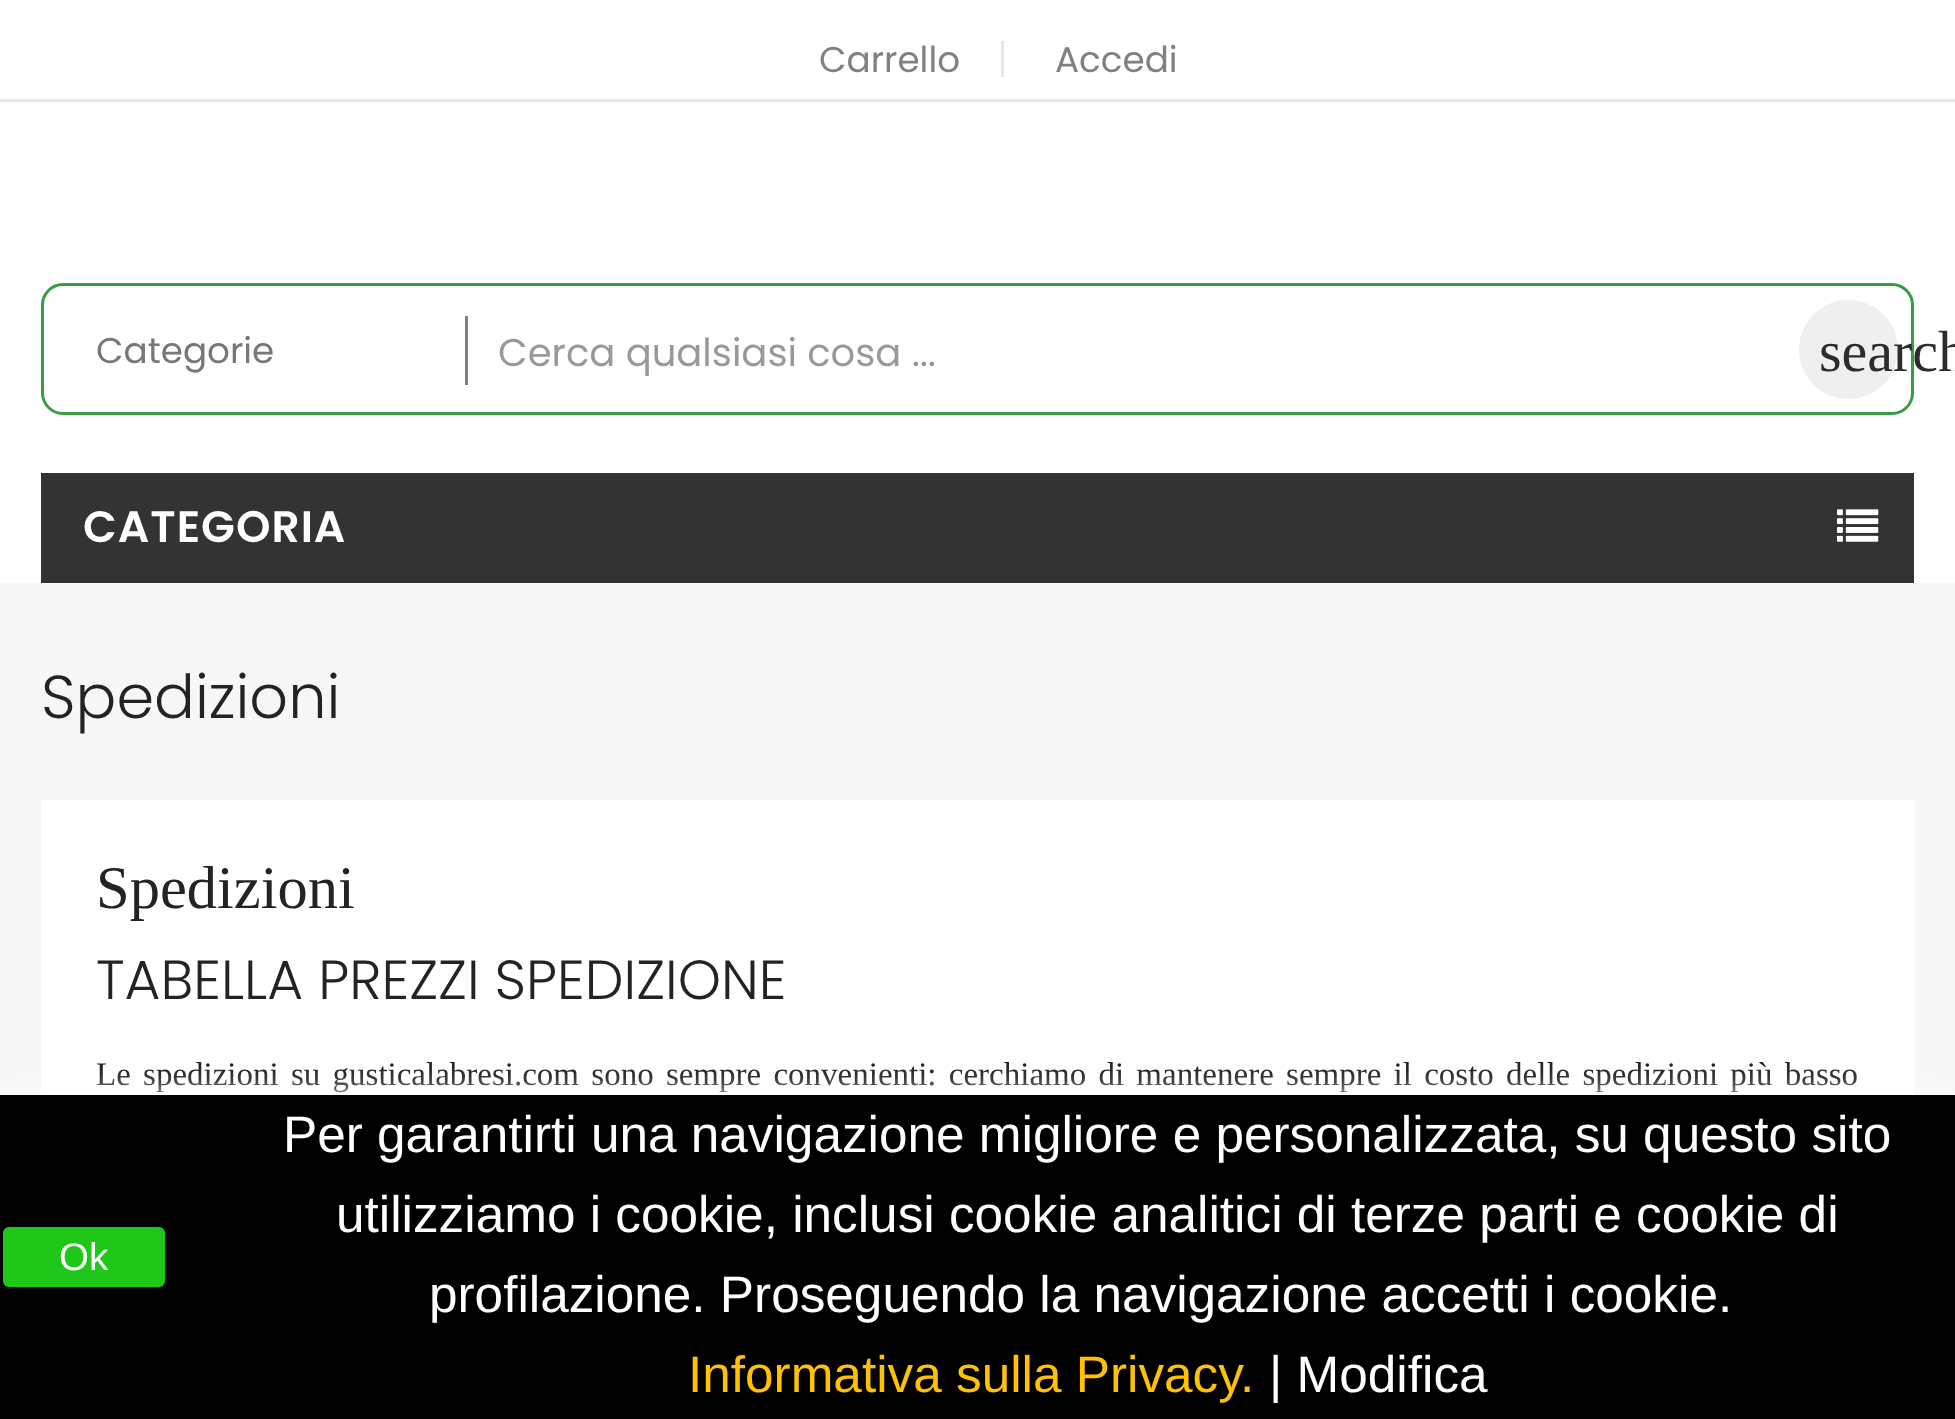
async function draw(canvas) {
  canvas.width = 1955;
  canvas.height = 1419;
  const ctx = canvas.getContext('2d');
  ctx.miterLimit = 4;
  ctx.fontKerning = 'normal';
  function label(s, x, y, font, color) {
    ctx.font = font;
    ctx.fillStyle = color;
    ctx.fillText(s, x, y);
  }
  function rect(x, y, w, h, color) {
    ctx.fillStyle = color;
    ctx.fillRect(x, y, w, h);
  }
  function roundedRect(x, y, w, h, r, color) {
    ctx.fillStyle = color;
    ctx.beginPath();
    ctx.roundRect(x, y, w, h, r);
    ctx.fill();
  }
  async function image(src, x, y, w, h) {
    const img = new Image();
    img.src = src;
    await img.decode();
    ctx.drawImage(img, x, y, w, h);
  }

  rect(0, 0, 1955, 1419, '#f7f7f7');
  rect(0, 0, 1955, 583, '#fff');
  rect(0, 99, 1955, 3, '#e6e6e6');
  rect(1001, 41, 3, 36, '#e6e6e6');
  label('Carrello', 819, 72, '35.75px Poppins', '#808080');
  label('Accedi', 1055, 72, '35.75px Poppins', '#808080');
  ctx.beginPath();
  ctx.roundRect(42.5, 284.5, 1870, 129, 20.5);
  ctx.strokeStyle = '#389d41';
  ctx.lineWidth = 3;
  ctx.stroke();
  rect(465, 316, 3, 69, '#7f7f7f');
  label('Categorie', 96, 363, '35.75px Poppins', '#777');
  label('Cerca qualsiasi cosa ...', 498, 366, '38.5px Poppins', '#999');
  ctx.fillStyle = '#efefef';
  ctx.beginPath();
  ctx.arc(1848.5, 349.5, 49.5, 0, 2 * Math.PI);
  ctx.fill();
  label('search', 1819, 371, '58px Liberation Serif', '#2c2c2c');
  rect(41, 473, 1873, 110, '#333');
  ctx.letterSpacing = '1px';
  label('CATEGORIA', 83, 542, '600 44px Poppins', '#fff');
  await image('assets/img1.png', 1837, 509, 42, 33);
  ctx.letterSpacing = '0px';
  label('Spedizioni', 41, 718, '300 60.5px Poppins', '#232323');
  rect(41, 800, 1873, 295, '#fff');
  label('Spedizioni', 96, 908, '60.5px Liberation Serif', '#232323');
  label('TABELLA PREZZI SPEDIZIONE', 96, 999, '300 55px Poppins', '#232323');
  ctx.wordSpacing = '4px';
  label('Le spedizioni su gusticalabresi.com sono sempre convenienti: cerchiamo di mantenere sempre il costo delle spedizioni più basso', 96, 1085, '33px Liberation Serif', '#232323');
  ctx.fillStyle = '#fff';
  ctx.filter = 'blur(14px)';
  ctx.beginPath();
  ctx.rect(0, 1095, 1955, 324);
  ctx.fill();
  ctx.filter = 'none';
  rect(0, 1095, 1955, 324, '#000');
  roundedRect(3, 1227, 162, 60, 6, '#1ec718');
  ctx.wordSpacing = '0px';
  label('Ok', 59, 1270, '38.5px Liberation Sans', '#fff');
  label('Per garantirti una navigazione migliore e personalizzata, su questo sito', 283, 1152, '51.3px Liberation Sans', '#fff');
  label('utilizziamo i cookie, inclusi cookie analitici di terze parti e cookie di', 336, 1232, '51.3px Liberation Sans', '#fff');
  label('profilazione. Proseguendo la navigazione accetti i cookie.', 429, 1312, '51.3px Liberation Sans', '#fff');
  label('Informativa sulla Privacy.', 688, 1392, '51.3px Liberation Sans', '#ffc100');
  label('| Modifica', 1269, 1392, '51.3px Liberation Sans', '#fff');
}

draw(document.querySelector('canvas'));
